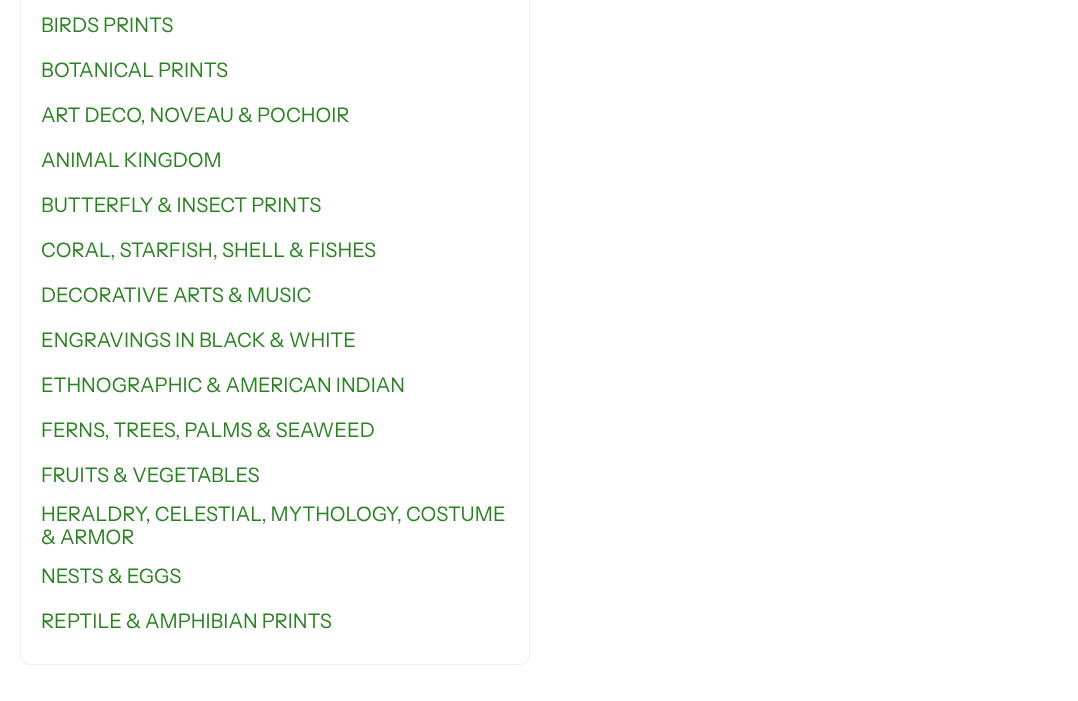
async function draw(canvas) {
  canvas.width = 1078;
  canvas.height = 701;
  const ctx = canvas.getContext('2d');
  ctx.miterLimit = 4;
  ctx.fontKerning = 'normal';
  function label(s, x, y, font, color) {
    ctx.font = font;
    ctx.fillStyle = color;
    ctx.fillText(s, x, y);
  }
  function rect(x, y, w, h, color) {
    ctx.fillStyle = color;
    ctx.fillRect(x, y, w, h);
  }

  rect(0, 0, 1078, 701, '#fff');
  ctx.beginPath();
  ctx.roundRect(20.5, -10.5, 509, 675, 9.5);
  ctx.strokeStyle = '#e9f3e8';
  ctx.stroke();
  label('BIRDS PRINTS', 41, 32, '20px Instrument Sans', '#27831d');
  label('BOTANICAL PRINTS', 41, 77, '20px Instrument Sans', '#27831d');
  label('ART DECO, NOVEAU & POCHOIR', 41, 122, '20px Instrument Sans', '#27831d');
  label('ANIMAL KINGDOM', 41, 167, '20px Instrument Sans', '#27831d');
  label('BUTTERFLY & INSECT PRINTS', 41, 212, '20px Instrument Sans', '#27831d');
  label('CORAL, STARFISH, SHELL & FISHES', 41, 257, '20px Instrument Sans', '#27831d');
  label('DECORATIVE ARTS & MUSIC', 41, 302, '20px Instrument Sans', '#27831d');
  label('ENGRAVINGS IN BLACK & WHITE', 41, 347, '20px Instrument Sans', '#27831d');
  label('ETHNOGRAPHIC & AMERICAN INDIAN', 41, 392, '20px Instrument Sans', '#27831d');
  label('FERNS, TREES, PALMS & SEAWEED', 41, 437, '20px Instrument Sans', '#27831d');
  label('FRUITS & VEGETABLES', 41, 482, '20px Instrument Sans', '#27831d');
  label('HERALDRY, CELESTIAL, MYTHOLOGY, COSTUME', 41, 521, '20px Instrument Sans', '#27831d');
  label('& ARMOR', 41, 544, '20px Instrument Sans', '#27831d');
  label('NESTS & EGGS', 41, 583, '20px Instrument Sans', '#27831d');
  label('REPTILE & AMPHIBIAN PRINTS', 41, 628, '20px Instrument Sans', '#27831d');
}

draw(document.querySelector('canvas'));
